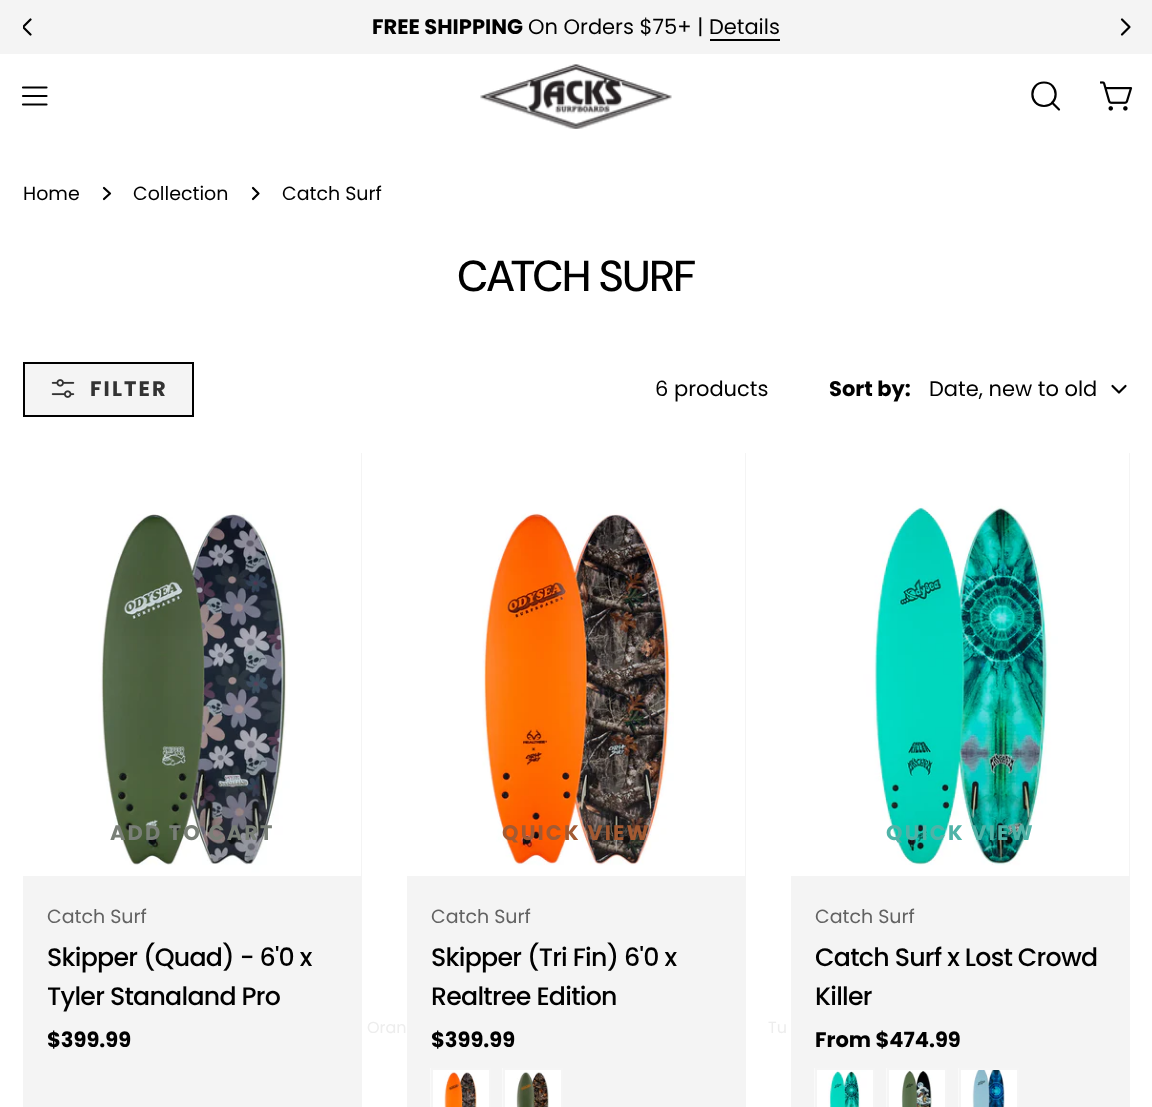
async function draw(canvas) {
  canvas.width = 1152;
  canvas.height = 1107;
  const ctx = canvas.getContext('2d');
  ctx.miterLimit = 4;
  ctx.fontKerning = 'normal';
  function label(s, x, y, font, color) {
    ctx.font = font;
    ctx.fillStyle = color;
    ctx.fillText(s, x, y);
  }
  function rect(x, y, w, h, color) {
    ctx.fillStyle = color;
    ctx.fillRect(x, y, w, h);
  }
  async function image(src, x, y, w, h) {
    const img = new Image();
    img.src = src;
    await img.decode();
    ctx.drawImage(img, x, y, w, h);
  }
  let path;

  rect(0, 0, 1152, 1107, '#fff');
  rect(0, 0, 1152, 54, '#f4f4f4');
  label('FREE SHIPPING', 372, 34, 'bold 21px Poppins', '#000');
  label('On Orders $75+ | Details', 528, 34, '21px Poppins', '#000');
  rect(710, 39, 70, 2, '#000');
  ctx.save();
  ctx.beginPath();
  ctx.rect(23, 15, 16, 24);
  ctx.clip();
  path = new Path2D('M30.5 34.5L23 27L30.5 19.5');
  ctx.strokeStyle = '#000';
  ctx.lineWidth = 2.2;
  ctx.lineCap = 'round';
  ctx.lineJoin = 'round';
  ctx.stroke(path);
  ctx.restore();
  path = new Path2D('M1122 19.5L1129.5 27L1122 34.5');
  ctx.strokeStyle = '#000';
  ctx.lineWidth = 2.2;
  ctx.lineCap = 'round';
  ctx.lineJoin = 'round';
  ctx.stroke(path);
  path = new Path2D('M23 96H46.5M23 87.5H46.5M23 104.5H46.5');
  ctx.stroke(path);
  await image('assets/img1.png', 480, 64, 192, 65);
  path = new Path2D('M1044 106C1059.5 106 1059.5 82.5 1044 82.5C1028.5 82.5 1028.5 106 1044 106ZM1052 102.5L1059 109.5');
  ctx.stroke(path);
  await image('assets/img2.png', 1100, 81, 33, 30);
  label('Home', 23, 200, '19px Poppins', '#000');
  path = new Path2D('M104 188L110 193.5L104 199');
  ctx.stroke(path);
  label('Collection', 133, 200, '19px Poppins', '#000');
  path = new Path2D('M253 188L258.5 193.5L253 199');
  ctx.stroke(path);
  label('Catch Surf', 282, 200, '19px Poppins', '#000');
  ctx.letterSpacing = '-1.25px';
  label('CATCH SURF', 457, 291, '500 43.25px DM Sans', '#000');
  ctx.fillStyle = '#f4f4f4';
  ctx.beginPath();
  ctx.rect(24, 363, 169, 53);
  ctx.fill();
  ctx.lineWidth = 2;
  ctx.lineJoin = 'miter';
  ctx.stroke();
  await image('assets/img3.png', 51, 379, 24, 19);
  ctx.letterSpacing = '2.1px';
  label('FILTER', 90, 396, 'bold 21px Poppins', '#333');
  ctx.letterSpacing = '0px';
  label('6 products', 655, 396, '21px Poppins', '#000');
  label('Sort by:', 829, 396, 'bold 21px Poppins', '#000');
  label('Date, new to old', 929, 396, '21px Poppins', '#000');
  path = new Path2D('M1125.5 386L1119 392.5L1112.5 386');
  ctx.lineWidth = 2.2;
  ctx.lineJoin = 'round';
  ctx.stroke(path);
  rect(23, 453, 339, 654, '#f4f4f4');
  await image('assets/img4.png', 23, 453, 338, 423);
  ctx.letterSpacing = '2.1px';
  label('ADD TO CART', 110, 840, 'bold 21px Poppins', '#797f77');
  ctx.letterSpacing = '0px';
  label('Catch Surf', 47, 923, '19px Poppins', '#626262');
  ctx.letterSpacing = '-0.75px';
  label('Skipper (Quad) - 6\'0 x', 47, 966, '500 25.25px Poppins', '#000');
  label('Tyler Stanaland Pro', 47, 1005, '500 25.25px Poppins', '#000');
  ctx.letterSpacing = '0px';
  label('$399.99', 47, 1047, 'bold 21px Poppins', '#000');
  rect(407, 453, 339, 654, '#f4f4f4');
  await image('assets/img5.png', 407, 453, 338, 423);
  ctx.letterSpacing = '2.1px';
  label('QUICK VIEW', 502, 840, 'bold 21px Poppins', '#a35a32');
  ctx.letterSpacing = '0px';
  label('Catch Surf', 431, 923, '19px Poppins', '#626262');
  ctx.letterSpacing = '-0.75px';
  label('Skipper (Tri Fin) 6\'0 x', 431, 966, '500 25.25px Poppins', '#000');
  label('Realtree Edition', 431, 1005, '500 25.25px Poppins', '#000');
  await image('assets/img6.png', 430, 1068, 59, 39);
  ctx.strokeStyle = '#f5f5f5';
  ctx.lineWidth = 2;
  ctx.lineJoin = 'miter';
  ctx.strokeRect(432, 1069, 58, 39);
  ctx.letterSpacing = '0px';
  label('Oran', 367, 1033, '16px Poppins', '#ededed');
  await image('assets/img7.png', 502, 1068, 59, 39);
  ctx.strokeRect(504, 1069, 58, 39);
  label('$399.99', 431, 1047, 'bold 21px Poppins', '#000');
  rect(791, 453, 339, 654, '#f4f4f4');
  await image('assets/img8.png', 791, 453, 338, 423);
  ctx.letterSpacing = '2.1px';
  label('QUICK VIEW', 886, 840, 'bold 21px Poppins', '#4fb3a7');
  ctx.letterSpacing = '0px';
  label('Catch Surf', 815, 923, '19px Poppins', '#626262');
  ctx.letterSpacing = '-0.75px';
  label('Catch Surf x Lost Crowd', 815, 966, '500 25.25px Poppins', '#000');
  label('Killer', 815, 1005, '500 25.25px Poppins', '#000');
  await image('assets/img9.png', 814, 1068, 59, 39);
  ctx.strokeRect(816, 1069, 58, 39);
  ctx.letterSpacing = '0px';
  label('Tu', 768, 1033, '16px Poppins', '#ededed');
  await image('assets/img10.png', 886, 1068, 59, 39);
  ctx.strokeRect(888, 1069, 58, 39);
  await image('assets/img11.png', 958, 1068, 59, 39);
  ctx.strokeRect(960, 1069, 58, 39);
  label('From $474.99', 815, 1047, 'bold 21px Poppins', '#000');
}

draw(document.querySelector('canvas'));
